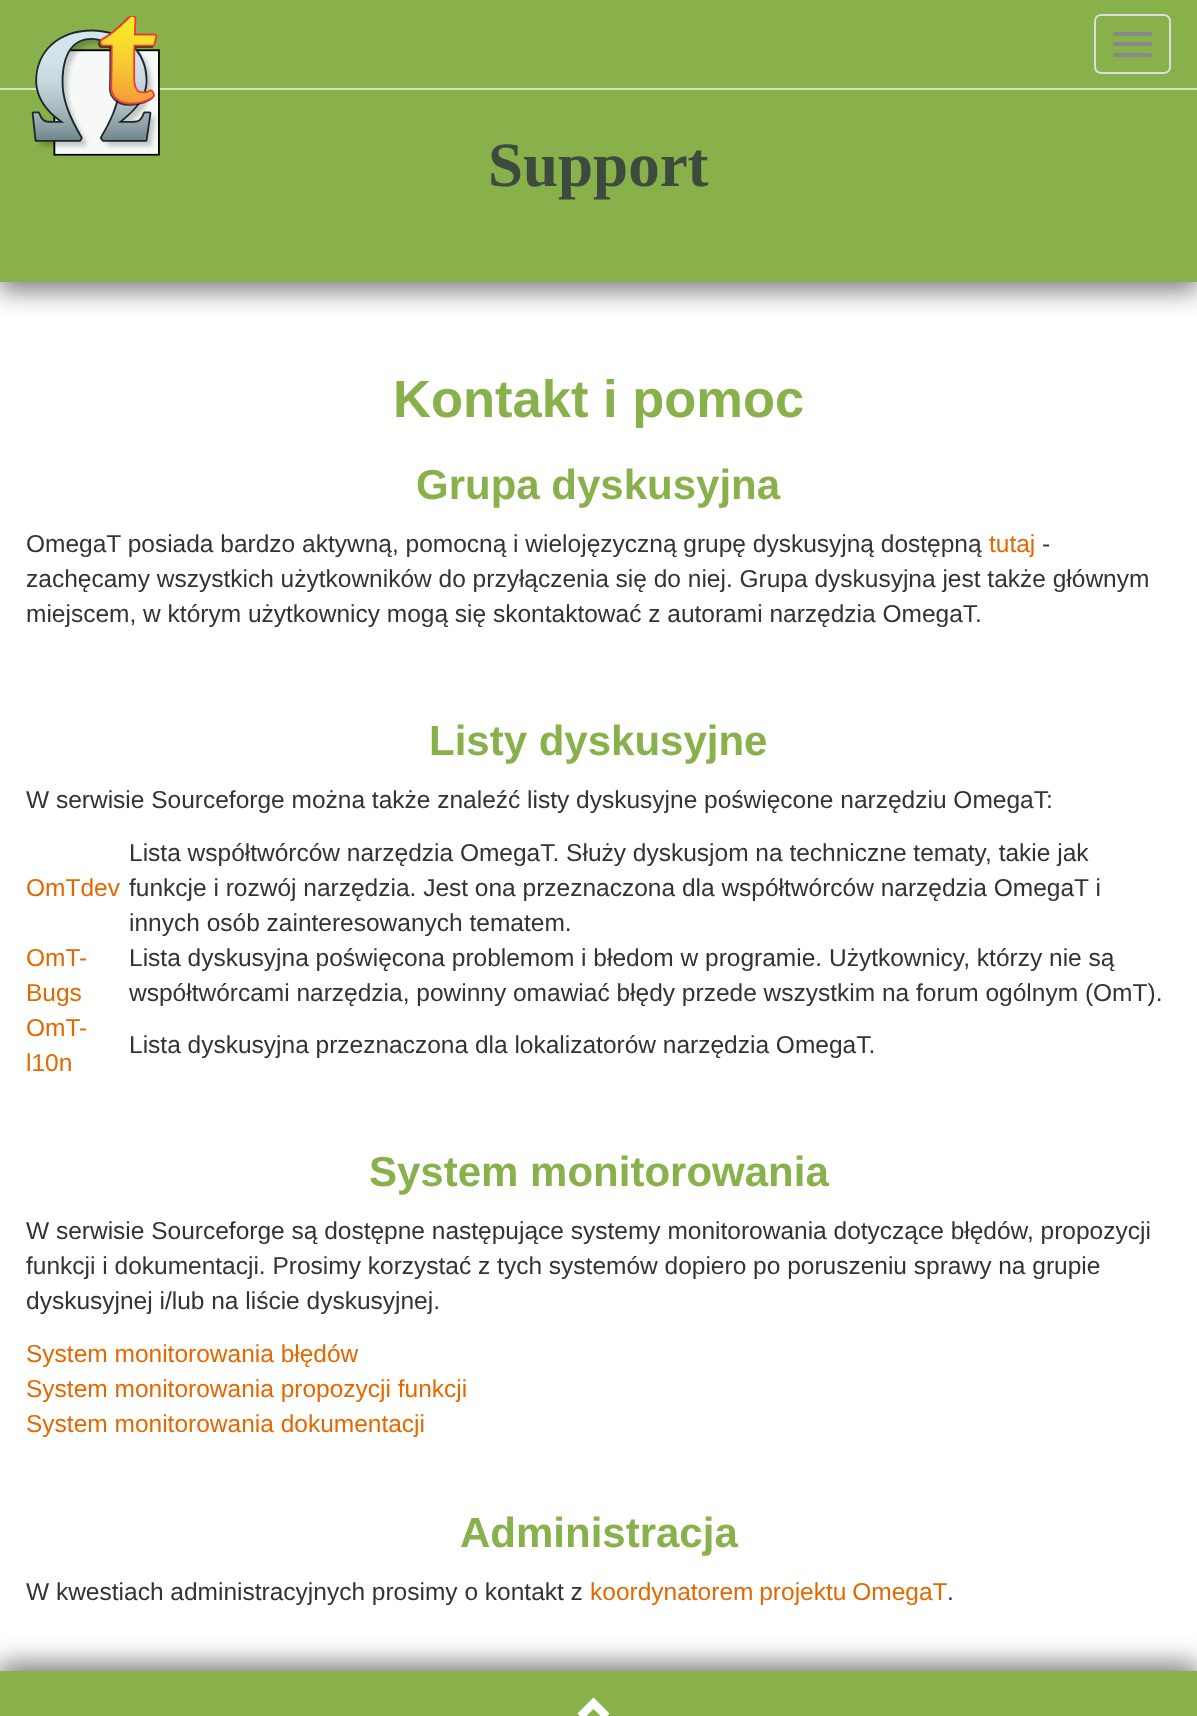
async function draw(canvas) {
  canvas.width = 1197;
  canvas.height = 1716;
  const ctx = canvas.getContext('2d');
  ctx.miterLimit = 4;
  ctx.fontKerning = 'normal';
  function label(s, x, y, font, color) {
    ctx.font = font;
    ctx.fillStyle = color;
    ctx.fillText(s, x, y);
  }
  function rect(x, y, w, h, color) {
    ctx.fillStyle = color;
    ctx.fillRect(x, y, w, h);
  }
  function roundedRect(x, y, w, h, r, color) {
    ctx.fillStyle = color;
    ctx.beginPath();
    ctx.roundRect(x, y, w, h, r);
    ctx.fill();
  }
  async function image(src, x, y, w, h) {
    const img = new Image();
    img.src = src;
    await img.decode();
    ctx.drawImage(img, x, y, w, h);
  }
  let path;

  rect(0, 0, 1197, 1716, '#fff');
  ctx.fillStyle = '#00000080';
  ctx.filter = 'blur(13px)';
  ctx.beginPath();
  ctx.rect(-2, 95, 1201, 196);
  ctx.fill();
  ctx.filter = 'none';
  rect(0, 0, 1197, 88, '#88b04b');
  rect(0, 88, 1197, 2, '#d5e4bf');
  rect(0, 90, 1197, 192, '#88b04b');
  await image('assets/img1.png', 31, 16, 129, 140);
  ctx.beginPath();
  ctx.roundRect(1095, 15, 75, 58, 6);
  ctx.strokeStyle = '#ddd';
  ctx.lineWidth = 2;
  ctx.stroke();
  roundedRect(1113, 32, 39, 4, 2, '#888');
  roundedRect(1113, 42, 39, 4, 2, '#888');
  roundedRect(1113, 53, 39, 4, 2, '#888');
  label('Support', 488, 186, 'bold 63px Liberation Serif', '#3d4a3e');
  label('Kontakt i pomoc', 393, 417, 'bold 52.5px Liberation Sans', '#88b04b');
  label('Grupa dyskusyjna', 416, 499, 'bold 42px Liberation Sans', '#88b04b');
  label('OmegaT posiada bardzo aktywną, pomocną i wielojęzyczną grupę dyskusyjną dostępną', 26, 552, '24.5px Liberation Sans', '#333');
  label('tutaj', 989, 552, '24.5px Liberation Sans', '#e46800');
  label('-', 1042, 552, '24.5px Liberation Sans', '#333');
  label('zachęcamy wszystkich użytkowników do przyłączenia się do niej. Grupa dyskusyjna jest także głównym', 26, 587, '24.5px Liberation Sans', '#333');
  label('miejscem, w którym użytkownicy mogą się skontaktować z autorami narzędzia OmegaT.', 26, 622, '24.5px Liberation Sans', '#333');
  label('Listy dyskusyjne', 429, 755, 'bold 42px Liberation Sans', '#88b04b');
  label('W serwisie Sourceforge można także znaleźć listy dyskusyjne poświęcone narzędziu OmegaT:', 26, 808, '24.5px Liberation Sans', '#333');
  label('OmTdev', 26, 896, '24.5px Liberation Sans', '#e46800');
  label('Lista współtwórców narzędzia OmegaT. Służy dyskusjom na techniczne tematy, takie jak', 129, 861, '24.5px Liberation Sans', '#333');
  label('funkcje i rozwój narzędzia. Jest ona przeznaczona dla współtwórców narzędzia OmegaT i', 129, 896, '24.5px Liberation Sans', '#333');
  label('innych osób zainteresowanych tematem.', 129, 931, '24.5px Liberation Sans', '#333');
  label('OmT-', 26, 966, '24.5px Liberation Sans', '#e46800');
  label('Bugs', 26, 1001, '24.5px Liberation Sans', '#e46800');
  label('Lista dyskusyjna poświęcona problemom i błedom w programie. Użytkownicy, którzy nie są', 129, 966, '24.5px Liberation Sans', '#333');
  label('współtwórcami narzędzia, powinny omawiać błędy przede wszystkim na forum ogólnym (OmT).', 129, 1001, '24.5px Liberation Sans', '#333');
  label('OmT-', 26, 1036, '24.5px Liberation Sans', '#e46800');
  label('l10n', 26, 1071, '24.5px Liberation Sans', '#e46800');
  label('Lista dyskusyjna przeznaczona dla lokalizatorów narzędzia OmegaT.', 129, 1053, '24.5px Liberation Sans', '#333');
  label('System monitorowania', 369, 1186, 'bold 42px Liberation Sans', '#88b04b');
  label('W serwisie Sourceforge są dostępne następujące systemy monitorowania dotyczące błędów, propozycji', 26, 1239, '24.5px Liberation Sans', '#333');
  label('funkcji i dokumentacji. Prosimy korzystać z tych systemów dopiero po poruszeniu sprawy na grupie', 26, 1274, '24.5px Liberation Sans', '#333');
  label('dyskusyjnej i/lub na liście dyskusyjnej.', 26, 1309, '24.5px Liberation Sans', '#333');
  label('System monitorowania błędów', 26, 1362, '24.5px Liberation Sans', '#e46800');
  label('System monitorowania propozycji funkcji', 26, 1397, '24.5px Liberation Sans', '#e46800');
  label('System monitorowania dokumentacji', 26, 1432, '24.5px Liberation Sans', '#e46800');
  label('Administracja', 460, 1547, 'bold 42px Liberation Sans', '#88b04b');
  label('W kwestiach administracyjnych prosimy o kontakt z', 26, 1600, '24.5px Liberation Sans', '#333');
  ctx.wordSpacing = '-1px';
  label('koordynatorem projektu OmegaT', 590, 1600, '24.5px Liberation Sans', '#e46800');
  ctx.wordSpacing = '0px';
  label('.', 947, 1600, '24.5px Liberation Sans', '#333');
  ctx.fillStyle = '#00000080';
  ctx.filter = 'blur(13px)';
  ctx.beginPath();
  ctx.rect(-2, 1663, 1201, 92);
  ctx.fill();
  ctx.filter = 'none';
  rect(0, 1671, 1197, 45, '#88b04b');
  ctx.fillStyle = '#fff';
  path = new Path2D('M609.5 1713.5L604 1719.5L593.5 1709L583 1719.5L577.5 1713.5L593.5 1697.5Z');
  ctx.fill(path);
}

draw(document.querySelector('canvas'));
